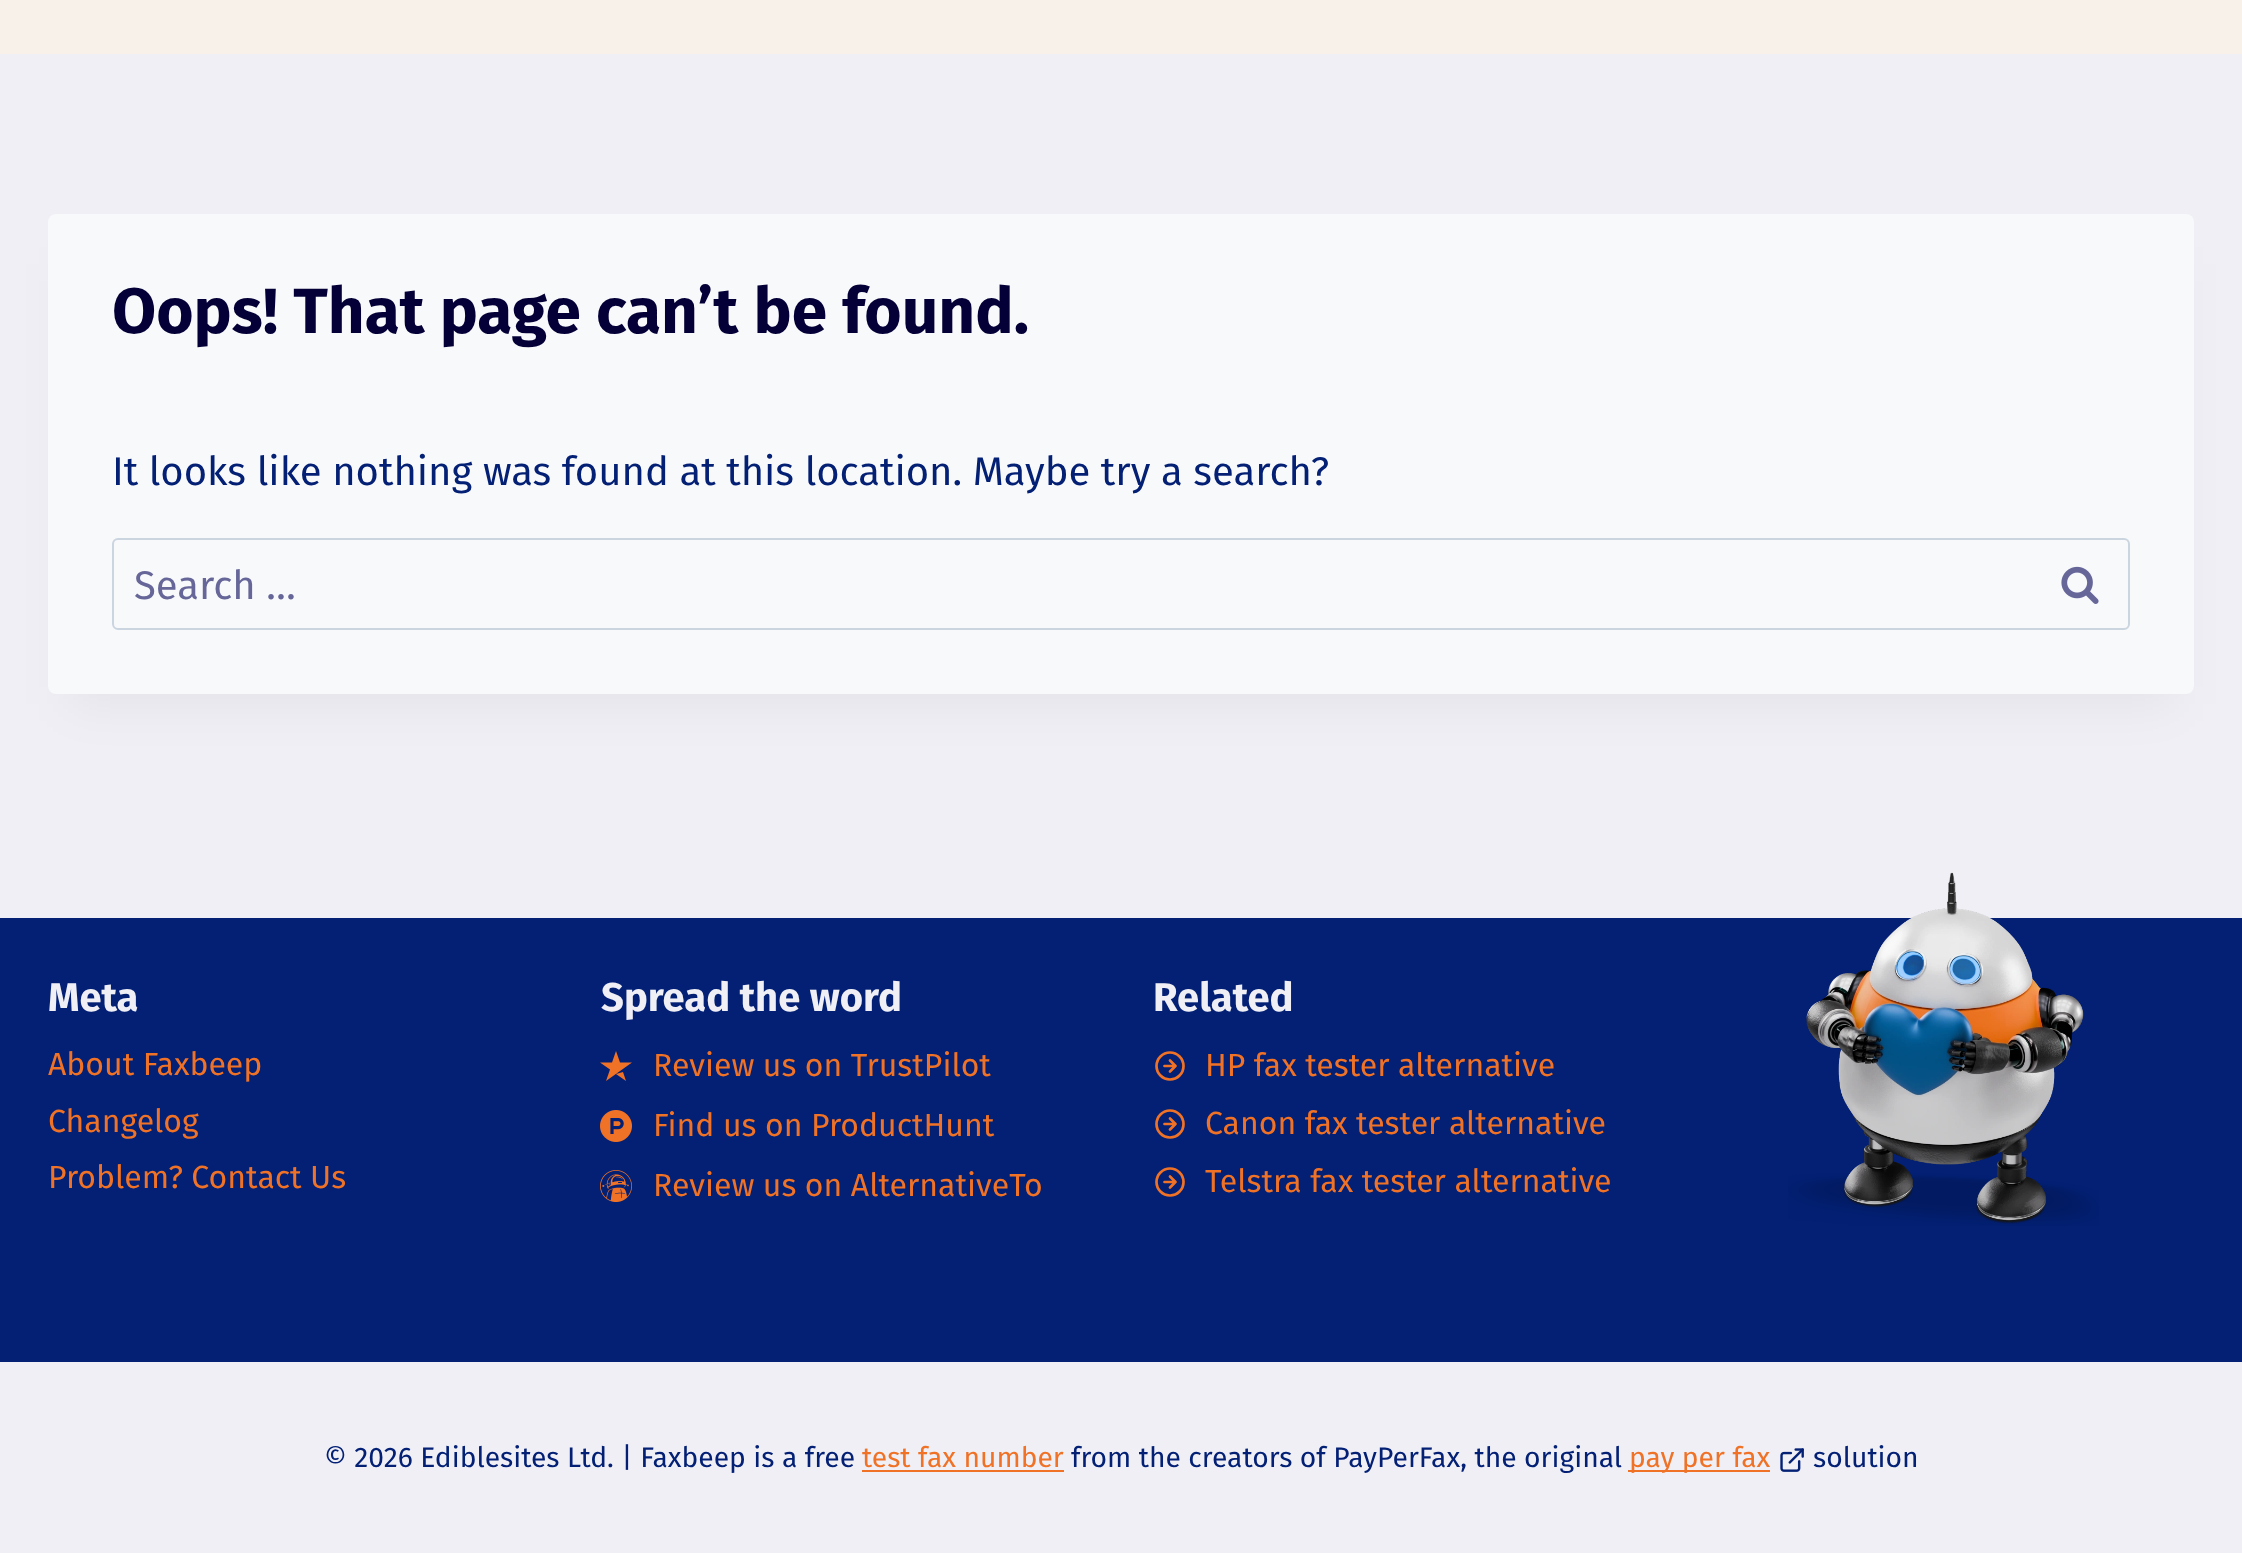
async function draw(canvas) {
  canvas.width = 2242;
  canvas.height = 1553;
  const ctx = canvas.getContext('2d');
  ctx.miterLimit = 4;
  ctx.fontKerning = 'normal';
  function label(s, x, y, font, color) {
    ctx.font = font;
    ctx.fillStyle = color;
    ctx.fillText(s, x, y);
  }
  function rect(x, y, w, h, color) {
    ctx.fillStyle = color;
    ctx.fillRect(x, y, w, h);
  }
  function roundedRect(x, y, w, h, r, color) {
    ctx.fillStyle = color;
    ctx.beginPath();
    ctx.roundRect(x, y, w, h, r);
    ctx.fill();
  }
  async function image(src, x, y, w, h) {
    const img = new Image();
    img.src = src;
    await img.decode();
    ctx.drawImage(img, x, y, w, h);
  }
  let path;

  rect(0, 0, 2242, 1553, '#efeff5');
  rect(0, 0, 2242, 54, '#f7f1ea');
  ctx.fillStyle = '#0000000d';
  ctx.filter = 'blur(25px)';
  ctx.beginPath();
  ctx.rect(68, 264, 2106, 440);
  ctx.fill();
  ctx.filter = 'none';
  roundedRect(48, 214, 2146, 480, 8, '#f8f9fa');
  label('Oops! That page can’t be found.', 112, 333, 'bold 64px Fira Sans', '#040037');
  label('It looks like nothing was found at this location. Maybe try a search?', 112, 485, '40px Fira Sans', '#032075');
  ctx.beginPath();
  ctx.roundRect(113, 539, 2016, 90, 5);
  ctx.strokeStyle = '#cbd5e0';
  ctx.lineWidth = 2;
  ctx.stroke();
  label('Search …', 134, 599, '40px Fira Sans', '#669');
  await image('assets/img1.png', 2061, 566, 38, 38);
  rect(0, 918, 2242, 444, '#032075');
  label('Meta', 48, 1011, 'bold 40px Fira Sans', '#efeff5');
  label('About Faxbeep', 48, 1075, '32px Fira Sans', '#ef7227');
  label('Changelog', 48, 1132, '32px Fira Sans', '#ef7227');
  label('Problem? Contact Us', 48, 1188, '32px Fira Sans', '#ef7227');
  label('Spread the word', 601, 1011, 'bold 40px Fira Sans', '#efeff5');
  ctx.fillStyle = '#ef7227';
  path = new Path2D('M623 1072L626 1081L616 1074ZM632 1062.5H620L616 1051L612 1062.5H600L610 1069.5L606 1081Z');
  ctx.fill(path);
  label('Review us on TrustPilot', 653, 1076, '32px Fira Sans', '#ef7227');
  await image('assets/img2.png', 600, 1110, 32, 32);
  label('Find us on ProductHunt', 653, 1136, '32px Fira Sans', '#ef7227');
  await image('assets/img3.png', 600, 1170, 32, 32);
  label('Review us on AlternativeTo', 653, 1196, '32px Fira Sans', '#ef7227');
  label('Related', 1153, 1011, 'bold 40px Fira Sans', '#efeff5');
  ctx.beginPath();
  ctx.arc(1170, 1066, 13.5, 0, 2 * Math.PI);
  ctx.strokeStyle = '#ef7227';
  ctx.lineWidth = 2.7;
  ctx.stroke();
  path = new Path2D('M1170 1071.5L1175.5 1066L1170 1060.5M1164.5 1066H1175.5');
  ctx.lineCap = 'round';
  ctx.lineJoin = 'round';
  ctx.stroke(path);
  label('HP fax tester alternative', 1205, 1076, '32px Fira Sans', '#ef7227');
  ctx.beginPath();
  ctx.arc(1170, 1124, 13.5, 0, 2 * Math.PI);
  ctx.stroke();
  path = new Path2D('M1170 1129.5L1175.5 1124L1170 1118.5M1164.5 1124H1175.5');
  ctx.stroke(path);
  label('Canon fax tester alternative', 1205, 1134, '32px Fira Sans', '#ef7227');
  ctx.beginPath();
  ctx.arc(1170, 1182, 13.5, 0, 2 * Math.PI);
  ctx.stroke();
  path = new Path2D('M1170 1187.5L1175.5 1182L1170 1176.5M1164.5 1182H1175.5');
  ctx.stroke(path);
  label('Telstra fax tester alternative', 1205, 1192, '32px Fira Sans', '#ef7227');
  await image('assets/img4.png', 1788, 872, 311, 354);
  label('© 2026 Ediblesites Ltd. | Faxbeep is a free', 324, 1467, '28.25px Fira Sans', '#032075');
  label('test fax number', 862, 1467, '28.25px Fira Sans', '#ef7227');
  rect(862, 1470, 202, 2, '#ef7227');
  label('from the creators of PayPerFax, the original', 1071, 1467, '28.25px Fira Sans', '#032075');
  rect(1628, 1470, 142, 2, '#ef7227');
  label('pay per fax', 1629, 1467, '28.25px Fira Sans', '#ef7227');
  await image('assets/img5.png', 1780, 1448, 24, 24);
  label('solution', 1813, 1467, '28.25px Fira Sans', '#032075');
}

draw(document.querySelector('canvas'));
